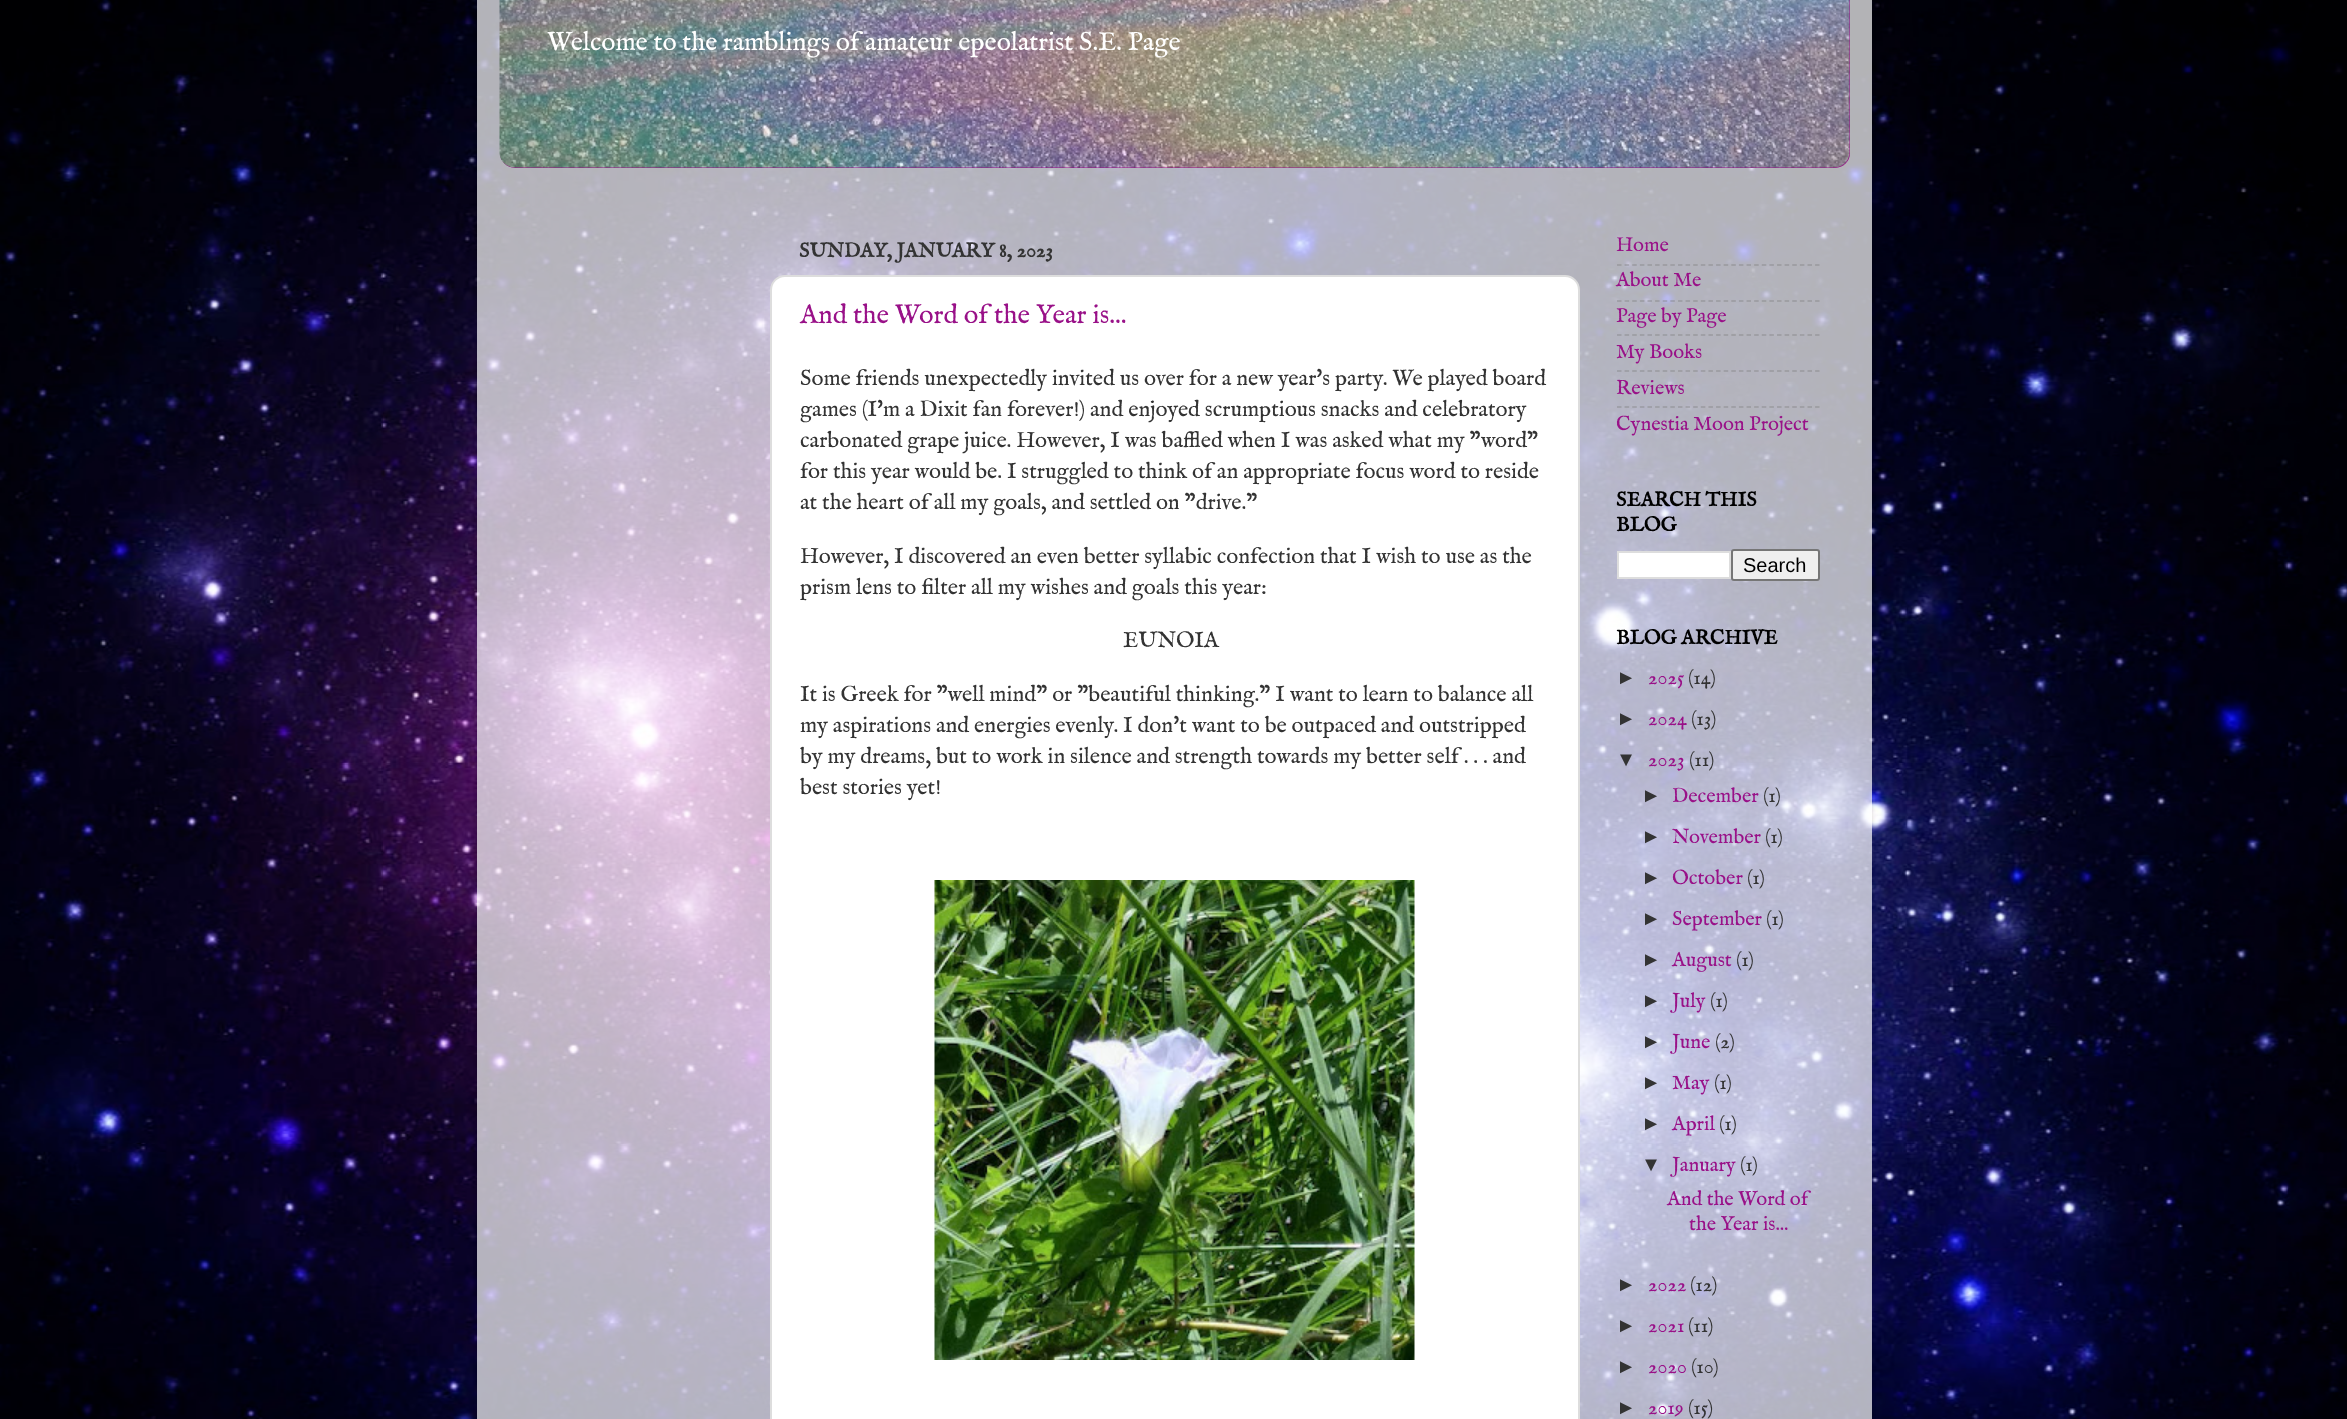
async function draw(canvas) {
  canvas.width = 2347;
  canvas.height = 1419;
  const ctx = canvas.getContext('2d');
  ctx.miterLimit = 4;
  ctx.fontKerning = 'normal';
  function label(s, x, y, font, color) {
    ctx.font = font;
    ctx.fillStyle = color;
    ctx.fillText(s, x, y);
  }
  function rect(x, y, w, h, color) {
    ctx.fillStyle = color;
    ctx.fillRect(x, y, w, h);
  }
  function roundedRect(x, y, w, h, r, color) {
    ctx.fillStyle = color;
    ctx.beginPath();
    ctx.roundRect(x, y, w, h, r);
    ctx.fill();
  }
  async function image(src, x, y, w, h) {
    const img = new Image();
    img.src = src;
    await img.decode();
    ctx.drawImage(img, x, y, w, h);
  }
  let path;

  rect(0, 0, 2347, 1419, '#fff');
  await image('assets/img1.png', 0, 0, 2347, 1419);
  ctx.save();
  path = new Path2D('M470 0H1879V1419H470ZM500-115H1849C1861.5-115 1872-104.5 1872-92V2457C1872 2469.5 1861.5 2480 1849 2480H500C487.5 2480 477 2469.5 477 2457V-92C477-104.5 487.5-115 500-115Z');
  ctx.clip(path, 'evenodd');
  ctx.fillStyle = '#00000026';
  ctx.filter = 'blur(2px)';
  ctx.beginPath();
  ctx.roundRect(477, -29, 1395, 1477, 23);
  ctx.fill();
  ctx.filter = 'none';
  ctx.restore();
  rect(477, 0, 1395, 1419, '#ffffffb3');
  roundedRect(500, -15, 1350, 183, 15, '#918');
  await image('assets/img2.png', 499, 0, 1351, 168);
  label('Welcome to the ramblings of amateur epeolatrist S.E. Page', 547, 50, '26.3px IM FELL English', '#fff');
  label('SUNDAY, JANUARY 8, 2023', 799, 257, 'bold 20.25px IM FELL English', '#333');
  ctx.fillStyle = '#fff';
  ctx.beginPath();
  ctx.roundRect(771, 276, 808, 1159, 14);
  ctx.fill();
  ctx.strokeStyle = '#ddd';
  ctx.lineWidth = 2;
  ctx.stroke();
  label('And the Word of the Year is...', 800, 323, '27px IM FELL English', '#918');
  label('Some friends unexpectedly invited us over for a new year\'s party. We played board', 800, 385, '22.25px IM FELL English', '#333');
  label('games (I\'m a Dixit fan forever!) and enjoyed scrumptious snacks and celebratory', 800, 416, '22.25px IM FELL English', '#333');
  label('carbonated grape juice. However, I was baffled when I was asked what my "word"', 800, 447, '22.25px IM FELL English', '#333');
  label('for this year would be. I struggled to think of an appropriate focus word to reside', 800, 478, '22.25px IM FELL English', '#333');
  label('at the heart of all my goals, and settled on "drive."', 800, 509, '22.25px IM FELL English', '#333');
  label('However, I discovered an even better syllabic confection that I wish to use as the', 800, 563, '22.25px IM FELL English', '#333');
  label('prism lens to filter all my wishes and goals this year:', 800, 594, '22.25px IM FELL English', '#333');
  label('EUNOIA', 1123, 647, '22.25px IM FELL English', '#333');
  label('It is Greek for "well mind" or "beautiful thinking." I want to learn to balance all', 800, 701, '22.25px IM FELL English', '#333');
  label('my aspirations and energies evenly. I don\'t want to be outpaced and outstripped', 800, 732, '22.25px IM FELL English', '#333');
  label('by my dreams, but to work in silence and strength towards my better self . . . and', 800, 763, '22.25px IM FELL English', '#333');
  label('best stories yet!', 800, 794, '22.25px IM FELL English', '#333');
  await image('assets/img3.png', 934, 880, 481, 480);
  label('Home', 1616, 251, '20.25px IM FELL English', '#918');
  path = new Path2D('M1617 265H1819.5');
  ctx.strokeStyle = '#80808080';
  ctx.lineWidth = 1.5;
  ctx.setLineDash([4.5, 3.12]);
  ctx.stroke(path);
  label('About Me', 1616, 286, '20.25px IM FELL English', '#918');
  path = new Path2D('M1617 301H1819.5');
  ctx.stroke(path);
  label('Page by Page', 1616, 322, '20.25px IM FELL English', '#918');
  path = new Path2D('M1617 335H1819.5');
  ctx.stroke(path);
  label('My Books', 1616, 358, '20.25px IM FELL English', '#918');
  path = new Path2D('M1617 371H1819.5');
  ctx.stroke(path);
  label('Reviews', 1616, 394, '20.25px IM FELL English', '#918');
  path = new Path2D('M1617 407H1819.5');
  ctx.stroke(path);
  label('Cynestia Moon Project', 1616, 430, '20.25px IM FELL English', '#918');
  label('SEARCH THIS', 1616, 506, 'bold 20.25px IM FELL English', '#000');
  label('BLOG', 1616, 531, 'bold 20.25px IM FELL English', '#000');
  ctx.fillStyle = '#fff';
  ctx.beginPath();
  ctx.rect(1618, 552, 112, 26);
  ctx.fill();
  ctx.strokeStyle = '#ddd';
  ctx.lineWidth = 2;
  ctx.setLineDash([]);
  ctx.stroke();
  ctx.fillStyle = '#efefef';
  ctx.beginPath();
  ctx.roundRect(1732, 550, 87, 30, 2);
  ctx.fill();
  ctx.strokeStyle = '#767676';
  ctx.stroke();
  label('Search', 1743, 572, '20px Liberation Sans', '#000');
  label('BLOG ARCHIVE', 1616, 644, 'bold 20.25px IM FELL English', '#000');
  label('►', 1616, 684, '20.25px Liberation Sans', '#333');
  label('2025', 1648, 684, '20.25px IM FELL English', '#918');
  label('(14)', 1688, 684, '20.25px IM FELL English', '#333');
  label('►', 1616, 725, '20.25px Liberation Sans', '#333');
  label('2024', 1648, 725, '20.25px IM FELL English', '#918');
  label('(13)', 1691, 725, '20.25px IM FELL English', '#333');
  label('▼', 1616, 766, '20.25px Liberation Sans', '#333');
  label('2023', 1648, 766, '20.25px IM FELL English', '#918');
  label('(11)', 1689, 766, '20.25px IM FELL English', '#333');
  label('►', 1641, 802, '20.25px Liberation Sans', '#333');
  label('December', 1672, 802, '20.25px IM FELL English', '#918');
  label('(1)', 1763, 802, '20.25px IM FELL English', '#333');
  label('►', 1641, 843, '20.25px Liberation Sans', '#333');
  label('November', 1672, 843, '20.25px IM FELL English', '#918');
  label('(1)', 1765, 843, '20.25px IM FELL English', '#333');
  label('►', 1641, 884, '20.25px Liberation Sans', '#333');
  label('October', 1672, 884, '20.25px IM FELL English', '#918');
  label('(1)', 1747, 884, '20.25px IM FELL English', '#333');
  label('►', 1641, 925, '20.25px Liberation Sans', '#333');
  label('September', 1672, 925, '20.25px IM FELL English', '#918');
  label('(1)', 1766, 925, '20.25px IM FELL English', '#333');
  label('►', 1641, 966, '20.25px Liberation Sans', '#333');
  label('August', 1672, 966, '20.25px IM FELL English', '#918');
  label('(1)', 1736, 966, '20.25px IM FELL English', '#333');
  label('►', 1641, 1007, '20.25px Liberation Sans', '#333');
  label('July', 1672, 1007, '20.25px IM FELL English', '#918');
  label('(1)', 1710, 1007, '20.25px IM FELL English', '#333');
  label('►', 1641, 1048, '20.25px Liberation Sans', '#333');
  label('June', 1672, 1048, '20.25px IM FELL English', '#918');
  label('(2)', 1715, 1048, '20.25px IM FELL English', '#333');
  label('►', 1641, 1089, '20.25px Liberation Sans', '#333');
  label('May', 1672, 1089, '20.25px IM FELL English', '#918');
  label('(1)', 1714, 1089, '20.25px IM FELL English', '#333');
  label('►', 1641, 1130, '20.25px Liberation Sans', '#333');
  label('April', 1672, 1130, '20.25px IM FELL English', '#918');
  label('(1)', 1719, 1130, '20.25px IM FELL English', '#333');
  label('▼', 1641, 1171, '20.25px Liberation Sans', '#333');
  label('January', 1672, 1171, '20.25px IM FELL English', '#918');
  label('(1)', 1740, 1171, '20.25px IM FELL English', '#333');
  label('And the Word of', 1667, 1205, '20.25px IM FELL English', '#918');
  label('the Year is...', 1689, 1230, '20.25px IM FELL English', '#918');
  label('►', 1616, 1291, '20.25px Liberation Sans', '#333');
  label('2022', 1648, 1291, '20.25px IM FELL English', '#918');
  label('(12)', 1690, 1291, '20.25px IM FELL English', '#333');
  label('►', 1616, 1332, '20.25px Liberation Sans', '#333');
  label('2021', 1648, 1332, '20.25px IM FELL English', '#918');
  label('(11)', 1688, 1332, '20.25px IM FELL English', '#333');
  label('►', 1616, 1373, '20.25px Liberation Sans', '#333');
  label('2020', 1648, 1373, '20.25px IM FELL English', '#918');
  label('(10)', 1691, 1373, '20.25px IM FELL English', '#333');
  label('►', 1616, 1414, '20.25px Liberation Sans', '#333');
  label('2019', 1648, 1414, '20.25px IM FELL English', '#918');
  label('(15)', 1688, 1414, '20.25px IM FELL English', '#333');
}

draw(document.querySelector('canvas'));
